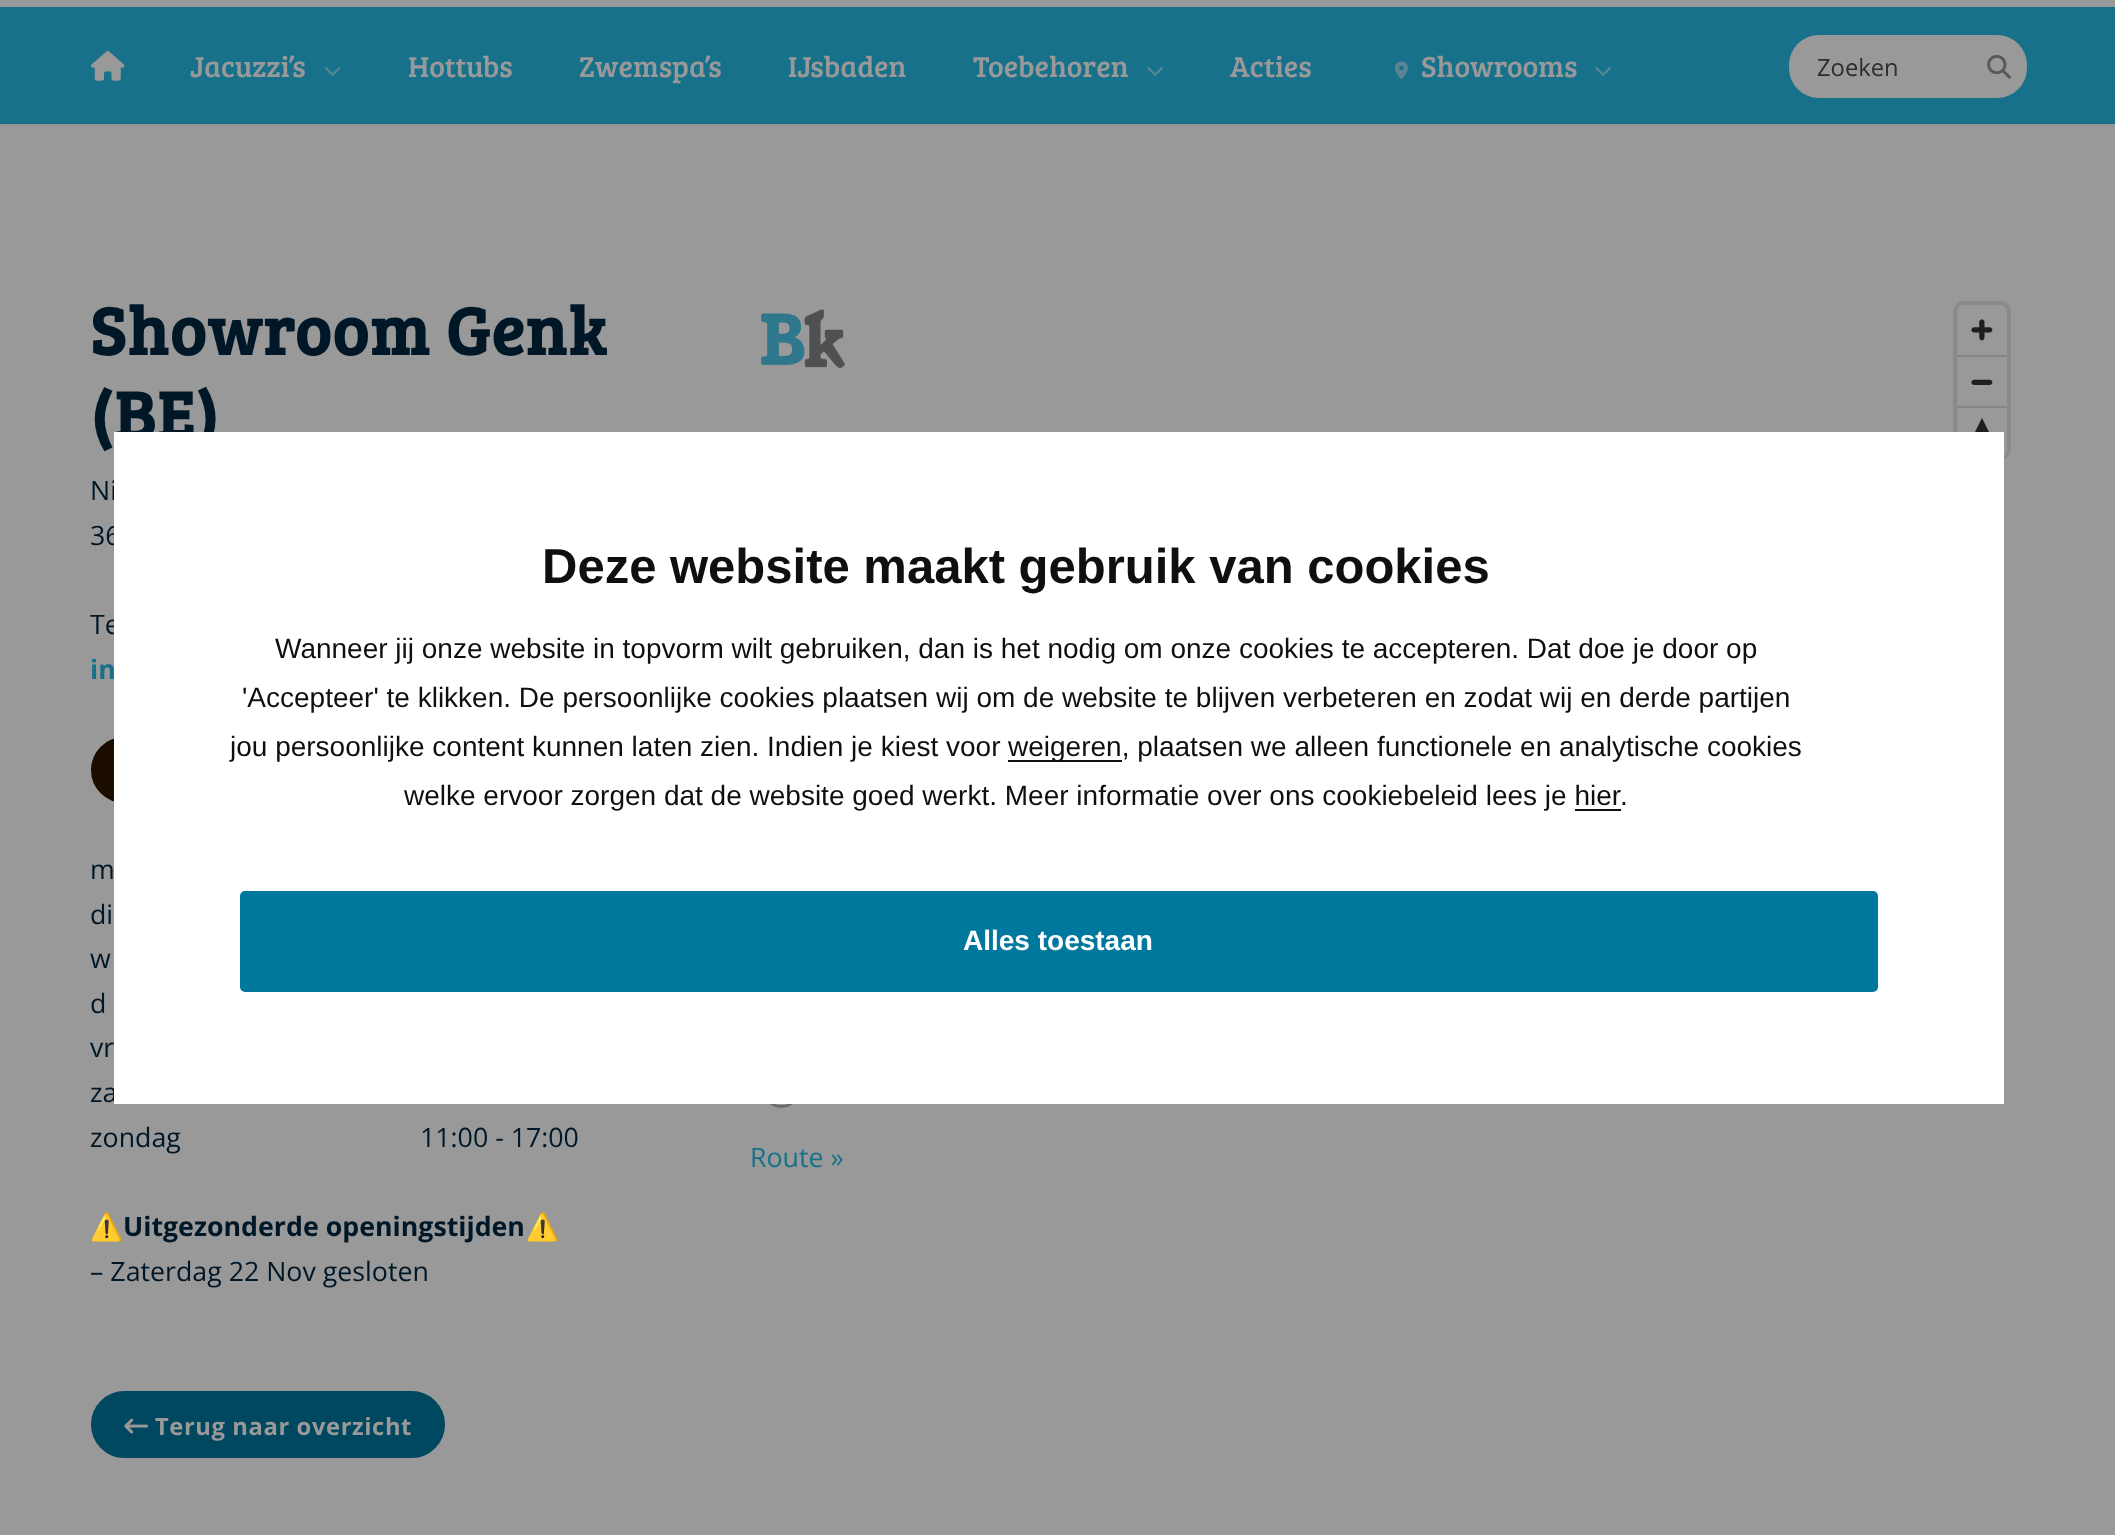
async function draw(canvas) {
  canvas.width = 2115;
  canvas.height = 1535;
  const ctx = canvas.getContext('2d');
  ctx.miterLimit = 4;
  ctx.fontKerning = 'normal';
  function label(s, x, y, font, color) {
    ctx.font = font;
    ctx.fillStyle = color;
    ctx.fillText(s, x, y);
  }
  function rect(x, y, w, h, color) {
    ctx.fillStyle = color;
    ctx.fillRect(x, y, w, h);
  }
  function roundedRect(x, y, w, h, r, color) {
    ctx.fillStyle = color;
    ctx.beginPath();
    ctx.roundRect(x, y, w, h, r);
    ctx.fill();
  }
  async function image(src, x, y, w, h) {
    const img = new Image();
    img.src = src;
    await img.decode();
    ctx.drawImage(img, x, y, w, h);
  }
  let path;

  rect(0, 0, 2115, 1535, '#999');
  rect(0, 124, 2115, 2, '#939393');
  rect(0, 7, 2115, 117, '#17718b');
  await image('assets/img1.png', 91, 51, 34, 30);
  label('Jacuzzi’s', 190, 77, '29.75px Bree Serif', '#999');
  await image('assets/img2.png', 324, 67, 17, 9);
  label('Hottubs', 408, 77, '29.75px Bree Serif', '#999');
  label('Zwemspa’s', 579, 77, '29.75px Bree Serif', '#999');
  label('IJsbaden', 788, 77, '29.75px Bree Serif', '#999');
  label('Toebehoren', 973, 77, '29.75px Bree Serif', '#999');
  await image('assets/img3.png', 1147, 67, 16, 9);
  label('Acties', 1230, 77, '29.75px Bree Serif', '#999');
  await image('assets/img4.png', 1394, 61, 15, 19);
  label('Showrooms', 1421, 77, '29.75px Bree Serif', '#999');
  await image('assets/img3.png', 1595, 67, 16, 9);
  roundedRect(1789, 35, 238, 63, 30, '#999');
  label('Zoeken', 1817, 76, '23.75px Open Sans', '#2e2e2e');
  await image('assets/img5.png', 1987, 54, 24, 25);
  ctx.letterSpacing = '1.4px';
  label('Showroom Genk', 90, 355, 'bold 68.5px Bree Serif', '#001727');
  label('(BE)', 90, 439, 'bold 68.5px Bree Serif', '#001727');
  ctx.letterSpacing = '0px';
  label('Ni', 90, 500, '26.75px Open Sans', '#001727');
  label('36', 90, 545, '26.75px Open Sans', '#001727');
  label('Te', 90, 634, '26.75px Open Sans', '#001727');
  label('in', 90, 679, 'bold 26.75px Open Sans', '#17718b');
  ctx.fillStyle = '#1a0d00';
  ctx.beginPath();
  ctx.roundRect(93, 739, 266, 62, 31);
  ctx.fill();
  ctx.strokeStyle = '#1a0d00';
  ctx.lineWidth = 4;
  ctx.stroke();
  label('m', 90, 879, '26.75px Open Sans', '#001727');
  label('di', 90, 924, '26.75px Open Sans', '#001727');
  label('w', 90, 968, '26.75px Open Sans', '#001727');
  label('d', 90, 1013, '26.75px Open Sans', '#001727');
  label('vr', 90, 1057, '26.75px Open Sans', '#001727');
  label('za', 90, 1102, '26.75px Open Sans', '#001727');
  label('zondag', 90, 1147, '26.75px Open Sans', '#001727');
  label('11:00 - 17:00', 420, 1147, '26.75px Open Sans', '#001727');
  ctx.beginPath();
  ctx.roundRect(1955, 303, 54, 155, 9);
  ctx.strokeStyle = '#8a8a8a';
  ctx.stroke();
  roundedRect(1957, 305, 50, 152, 7, '#999');
  await image('assets/img6.png', 1971, 319, 22, 22);
  rect(1957, 355, 50, 2, '#858585');
  await image('assets/img7.png', 1971, 379, 22, 6);
  rect(1957, 406, 50, 2, '#858585');
  ctx.fillStyle = '#1f1f1f';
  path = new Path2D('M1975 432L1982 418L1989 432Z');
  ctx.fill(path);
  await image('assets/img8.png', 770, 1104, 23, 4);
  await image('assets/img9.png', 761, 309, 84, 60);
  label('Route »', 750, 1167, '26.75px Open Sans', '#17718b');
  label('⚠️', 90, 1236, 'bold 26.75px Noto Color Emoji', '#001727');
  label('Uitgezonderde openingstijden', 123, 1236, 'bold 26.75px Open Sans', '#001727');
  label('⚠️', 526, 1236, 'bold 26.75px Noto Color Emoji', '#001727');
  label('– Zaterdag 22 Nov gesloten', 90, 1281, '26.75px Open Sans', '#001727');
  rect(114, 432, 1890, 672, '#fff');
  label('Deze website maakt gebruik van cookies', 542, 583, 'bold 49px Liberation Sans', '#0f0f0f');
  label('Wanneer jij onze website in topvorm wilt gebruiken, dan is het nodig om onze cookies te accepteren. Dat doe je door op', 275, 658, '28px Liberation Sans', '#0f0f0f');
  label('\'Accepteer\' te klikken. De persoonlijke cookies plaatsen wij om de website te blijven verbeteren en zodat wij en derde partijen', 242, 707, '28px Liberation Sans', '#0f0f0f');
  label('jou persoonlijke content kunnen laten zien. Indien je kiest voor', 230, 756, '28px Liberation Sans', '#0f0f0f');
  rect(1008, 760, 114, 2, '#0f0f0f');
  label('weigeren, plaatsen we alleen functionele en analytische cookies', 1008, 756, '28px Liberation Sans', '#0f0f0f');
  label('welke ervoor zorgen dat de website goed werkt. Meer informatie over ons cookiebeleid lees je hier', 404, 805, '28px Liberation Sans', '#0f0f0f');
  label('.', 1620, 805, '28px Liberation Sans', '#0f0f0f');
  rect(1575, 809, 46, 2, '#0f0f0f');
  ctx.fillStyle = '#00789e';
  ctx.beginPath();
  ctx.roundRect(242, 893, 1634, 97, 3);
  ctx.fill();
  ctx.strokeStyle = '#00789e';
  ctx.stroke();
  label('Alles toestaan', 963, 950, 'bold 28px Liberation Sans', '#fff');
  ctx.fillStyle = '#00485f';
  ctx.beginPath();
  ctx.roundRect(93, 1393, 350, 63, 31.5);
  ctx.fill();
  ctx.strokeStyle = '#00485f';
  ctx.stroke();
  await image('assets/img10.png', 124, 1418, 24, 16);
  ctx.letterSpacing = '0.6px';
  label('Terug naar overzicht', 155, 1435, 'bold 23.75px Open Sans', '#999');
}

draw(document.querySelector('canvas'));
